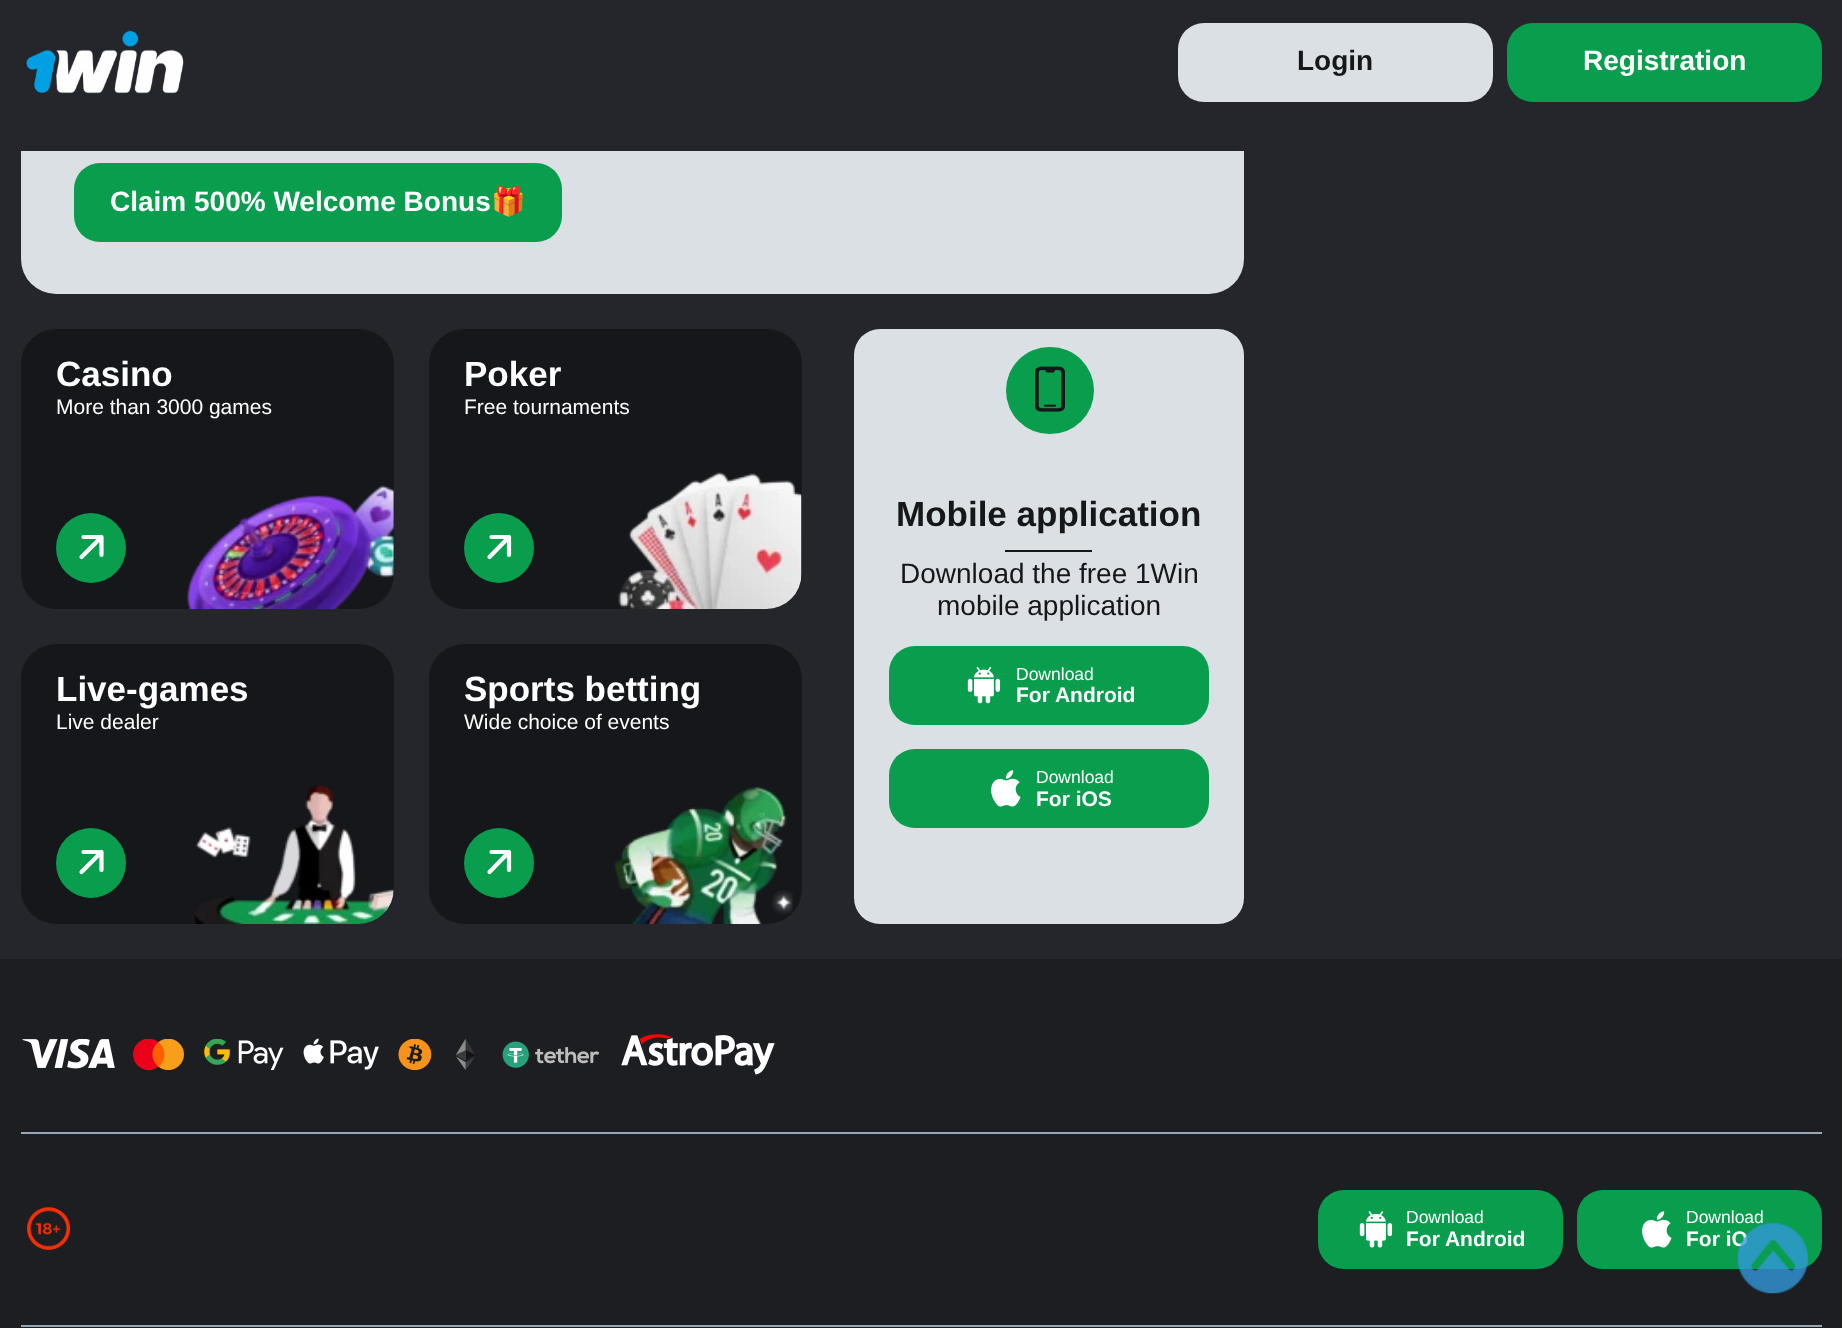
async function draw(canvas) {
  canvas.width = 1842;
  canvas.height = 1328;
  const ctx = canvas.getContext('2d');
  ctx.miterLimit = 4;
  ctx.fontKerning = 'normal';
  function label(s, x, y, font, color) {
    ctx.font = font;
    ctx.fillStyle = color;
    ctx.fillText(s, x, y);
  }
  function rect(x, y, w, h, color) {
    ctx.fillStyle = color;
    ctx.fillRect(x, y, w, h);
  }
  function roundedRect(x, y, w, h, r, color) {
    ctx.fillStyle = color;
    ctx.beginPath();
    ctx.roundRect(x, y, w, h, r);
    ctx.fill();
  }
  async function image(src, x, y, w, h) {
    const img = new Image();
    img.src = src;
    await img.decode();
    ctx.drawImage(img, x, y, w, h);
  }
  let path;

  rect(0, 0, 1842, 1328, '#24262b');
  roundedRect(21, -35, 1223, 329, 35, '#dbe0e5');
  rect(21, 0, 1223, 151, '#24262b');
  await image('assets/img1.png', 26, 30, 158, 64);
  roundedRect(1178, 23, 315, 79, 26, '#dbe0e5');
  label('Login', 1297, 70, 'bold 28px Liberation Sans', '#15171b');
  roundedRect(1507, 23, 315, 79, 26, '#089e4e');
  label('Registration', 1583, 70, 'bold 28px Liberation Sans', '#fff');
  roundedRect(74, 163, 488, 79, 26, '#089e4e');
  label('Claim 500% Welcome Bonus', 110, 211, 'bold 28px Liberation Sans', '#fff');
  label('🎁', 491, 211, 'bold 28px Noto Color Emoji', '#fff');
  roundedRect(21, 329, 373, 280, 35, '#15171b');
  label('Casino', 56, 386, 'bold 35px Liberation Sans', '#fff');
  label('More than 3000 games', 56, 414, '21px Liberation Sans', '#fff');
  ctx.fillStyle = '#089e4e';
  ctx.beginPath();
  ctx.arc(91, 548, 35, 0, 2 * Math.PI);
  ctx.fill();
  path = new Path2D('M81.5 557L101.5 537M101.5 537H83.5M101.5 537V555');
  ctx.strokeStyle = '#fff';
  ctx.lineWidth = 4.2;
  ctx.lineCap = 'round';
  ctx.lineJoin = 'round';
  ctx.stroke(path);
  await image('assets/img2.png', 187, 485, 207, 124);
  roundedRect(429, 329, 373, 280, 35, '#15171b');
  label('Poker', 464, 386, 'bold 35px Liberation Sans', '#fff');
  label('Free tournaments', 464, 414, '21px Liberation Sans', '#fff');
  ctx.fillStyle = '#089e4e';
  ctx.beginPath();
  ctx.arc(499, 548, 35, 0, 2 * Math.PI);
  ctx.fill();
  path = new Path2D('M489.5 557L509 537M509 537H491.5M509 537V555');
  ctx.stroke(path);
  await image('assets/img3.png', 618, 472, 184, 137);
  roundedRect(21, 644, 373, 280, 35, '#15171b');
  label('Live-games', 56, 701, 'bold 35px Liberation Sans', '#fff');
  label('Live dealer', 56, 729, '21px Liberation Sans', '#fff');
  ctx.fillStyle = '#089e4e';
  ctx.beginPath();
  ctx.arc(91, 863, 35, 0, 2 * Math.PI);
  ctx.fill();
  path = new Path2D('M81.5 872L101.5 852M101.5 852H83.5M101.5 852V870');
  ctx.stroke(path);
  await image('assets/img4.png', 194, 785, 200, 139);
  roundedRect(429, 644, 373, 280, 35, '#15171b');
  label('Sports betting', 464, 701, 'bold 35px Liberation Sans', '#fff');
  label('Wide choice of events', 464, 729, '21px Liberation Sans', '#fff');
  ctx.fillStyle = '#089e4e';
  ctx.beginPath();
  ctx.arc(499, 863, 35, 0, 2 * Math.PI);
  ctx.fill();
  path = new Path2D('M489.5 872L509 852M509 852H491.5M509 852V870');
  ctx.stroke(path);
  await image('assets/img5.png', 614, 787, 179, 137);
  roundedRect(854, 329, 390, 595, 26, '#dbe0e5');
  roundedRect(1006, 347, 88, 87, 43.5, '#089e4e');
  await image('assets/img6.png', 1035, 366, 30, 46);
  label('Mobile application', 896, 526, 'bold 35px Liberation Sans', '#15171b');
  rect(1005, 550, 87, 2, '#15171b');
  label('Download the free 1Win', 900, 583, '28px Liberation Sans', '#15171b');
  label('mobile application', 937, 615, '28px Liberation Sans', '#15171b');
  roundedRect(889, 646, 320, 79, 26, '#089e4e');
  await image('assets/img7.png', 967, 666, 34, 38);
  label('Download', 1016, 680, '17.5px Liberation Sans', '#fff');
  label('For Android', 1016, 702, 'bold 21px Liberation Sans', '#fff');
  roundedRect(889, 749, 320, 79, 26, '#089e4e');
  await image('assets/img8.png', 991, 770, 30, 37);
  label('Download', 1036, 783, '17.5px Liberation Sans', '#fff');
  label('For iOS', 1036, 806, 'bold 21px Liberation Sans', '#fff');
  rect(0, 959, 1842, 369, '#1c1e22');
  rect(21, 1132, 1801, 2, '#98a7b5');
  await image('assets/img9.png', 22, 1039, 93, 30);
  await image('assets/img10.png', 133, 1039, 51, 31);
  await image('assets/img11.png', 204, 1039, 80, 31);
  await image('assets/img12.png', 303, 1038, 76, 32);
  await image('assets/img13.png', 398, 1039, 34, 31);
  await image('assets/img14.png', 456, 1038, 19, 32);
  await image('assets/img15.png', 502, 1041, 98, 27);
  await image('assets/img16.png', 621, 1034, 154, 41);
  rect(21, 1325, 1801, 2, '#98a7b5');
  await image('assets/img17.png', 27, 1207, 44, 43);
  roundedRect(1318, 1190, 245, 79, 26, '#089e4e');
  await image('assets/img18.png', 1359, 1211, 34, 37);
  label('Download', 1406, 1223, '17.5px Liberation Sans', '#fff');
  label('For Android', 1406, 1246, 'bold 21px Liberation Sans', '#fff');
  roundedRect(1577, 1190, 245, 79, 26, '#089e4e');
  await image('assets/img8.png', 1642, 1211, 30, 37);
  label('Download', 1686, 1223, '17.5px Liberation Sans', '#fff');
  label('For iO', 1686, 1246, 'bold 21px Liberation Sans', '#fff');
  await image('assets/img19.png', 1737, 1223, 71, 71);
}

draw(document.querySelector('canvas'));
